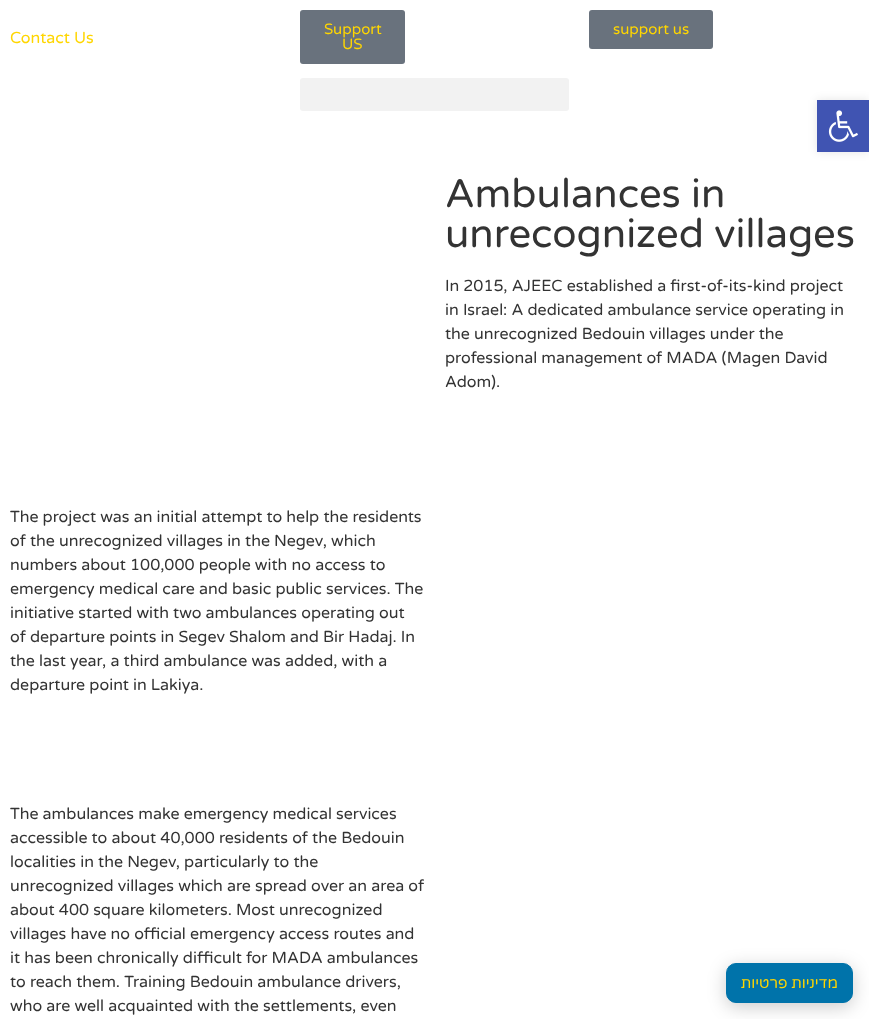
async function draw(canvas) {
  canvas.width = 869;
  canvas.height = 1019;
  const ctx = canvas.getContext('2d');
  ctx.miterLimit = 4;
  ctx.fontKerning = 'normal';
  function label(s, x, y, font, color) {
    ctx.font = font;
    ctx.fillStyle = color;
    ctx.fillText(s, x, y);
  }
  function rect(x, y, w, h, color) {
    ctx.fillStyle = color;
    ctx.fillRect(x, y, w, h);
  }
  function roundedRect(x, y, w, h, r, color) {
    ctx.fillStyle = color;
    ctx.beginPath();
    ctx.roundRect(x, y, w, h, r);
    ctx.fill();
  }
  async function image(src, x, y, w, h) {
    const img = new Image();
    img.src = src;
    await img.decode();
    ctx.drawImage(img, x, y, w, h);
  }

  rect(0, 0, 869, 1019, '#fff');
  label('Contact Us', 10, 43, '16px Varela Round', '#ffd600');
  roundedRect(300, 10, 105, 54, 3, '#69727d');
  label('Support', 324, 34, '15px Varela Round', '#ffd600');
  label('US', 342, 49, '15px Varela Round', '#ffd600');
  roundedRect(589, 10, 124, 39, 3, '#69727d');
  label('support us', 613, 34, '15px Varela Round', '#ffd600');
  roundedRect(300, 78, 269, 33, 3, '#f2f2f2');
  ctx.fillStyle = '#0000001a';
  ctx.filter = 'blur(5px)';
  ctx.beginPath();
  ctx.rect(817, 100, 52, 52);
  ctx.fill();
  ctx.filter = 'none';
  rect(817, 100, 52, 52, '#4054b2');
  await image('assets/img1.png', 828, 110, 30, 32);
  label('Ambulances in', 445, 207, '40px Varela Round', '#333');
  label('unrecognized villages', 445, 247, '40px Varela Round', '#333');
  label('In 2015, AJEEC established a first-of-its-kind project', 445, 291, '16px Varela Round', '#333');
  label('in Israel: A dedicated ambulance service operating in', 445, 315, '16px Varela Round', '#333');
  label('the unrecognized Bedouin villages under the', 445, 339, '16px Varela Round', '#333');
  label('professional management of MADA (Magen David', 445, 363, '16px Varela Round', '#333');
  label('Adom).', 445, 387, '16px Varela Round', '#333');
  label('The project was an initial attempt to help the residents', 10, 522, '16px Varela Round', '#333');
  label('of the unrecognized villages in the Negev, which', 10, 546, '16px Varela Round', '#333');
  label('numbers about 100,000 people with no access to', 10, 570, '16px Varela Round', '#333');
  label('emergency medical care and basic public services. The', 10, 594, '16px Varela Round', '#333');
  label('initiative started with two ambulances operating out', 10, 618, '16px Varela Round', '#333');
  label('of departure points in Segev Shalom and Bir Hadaj. In', 10, 642, '16px Varela Round', '#333');
  label('the last year, a third ambulance was added, with a', 10, 666, '16px Varela Round', '#333');
  label('departure point in Lakiya.', 10, 690, '16px Varela Round', '#333');
  label('The ambulances make emergency medical services', 10, 819, '16px Varela Round', '#333');
  label('accessible to about 40,000 residents of the Bedouin', 10, 843, '16px Varela Round', '#333');
  label('localities in the Negev, particularly to the', 10, 867, '16px Varela Round', '#333');
  label('unrecognized villages which are spread over an area of', 10, 891, '16px Varela Round', '#333');
  label('about 400 square kilometers. Most unrecognized', 10, 915, '16px Varela Round', '#333');
  label('villages have no official emergency access routes and', 10, 939, '16px Varela Round', '#333');
  label('it has been chronically difficult for MADA ambulances', 10, 963, '16px Varela Round', '#333');
  label('to reach them. Training Bedouin ambulance drivers,', 10, 987, '16px Varela Round', '#333');
  label('who are well acquainted with the settlements, even', 10, 1011, '16px Varela Round', '#333');
  ctx.fillStyle = '#00000033';
  ctx.filter = 'blur(9px)';
  ctx.beginPath();
  ctx.roundRect(726, 967, 127, 40, 10);
  ctx.fill();
  ctx.filter = 'none';
  ctx.fillStyle = '#0073aa';
  ctx.beginPath();
  ctx.roundRect(726.5, 963.5, 126, 39, 9.5);
  ctx.fill();
  ctx.strokeStyle = '#0073aa';
  ctx.stroke();
  ctx.direction = 'rtl';
  label('מדיניות פרטיות', 838, 988, '15px Varela Round', '#ffd600');
}

draw(document.querySelector('canvas'));
